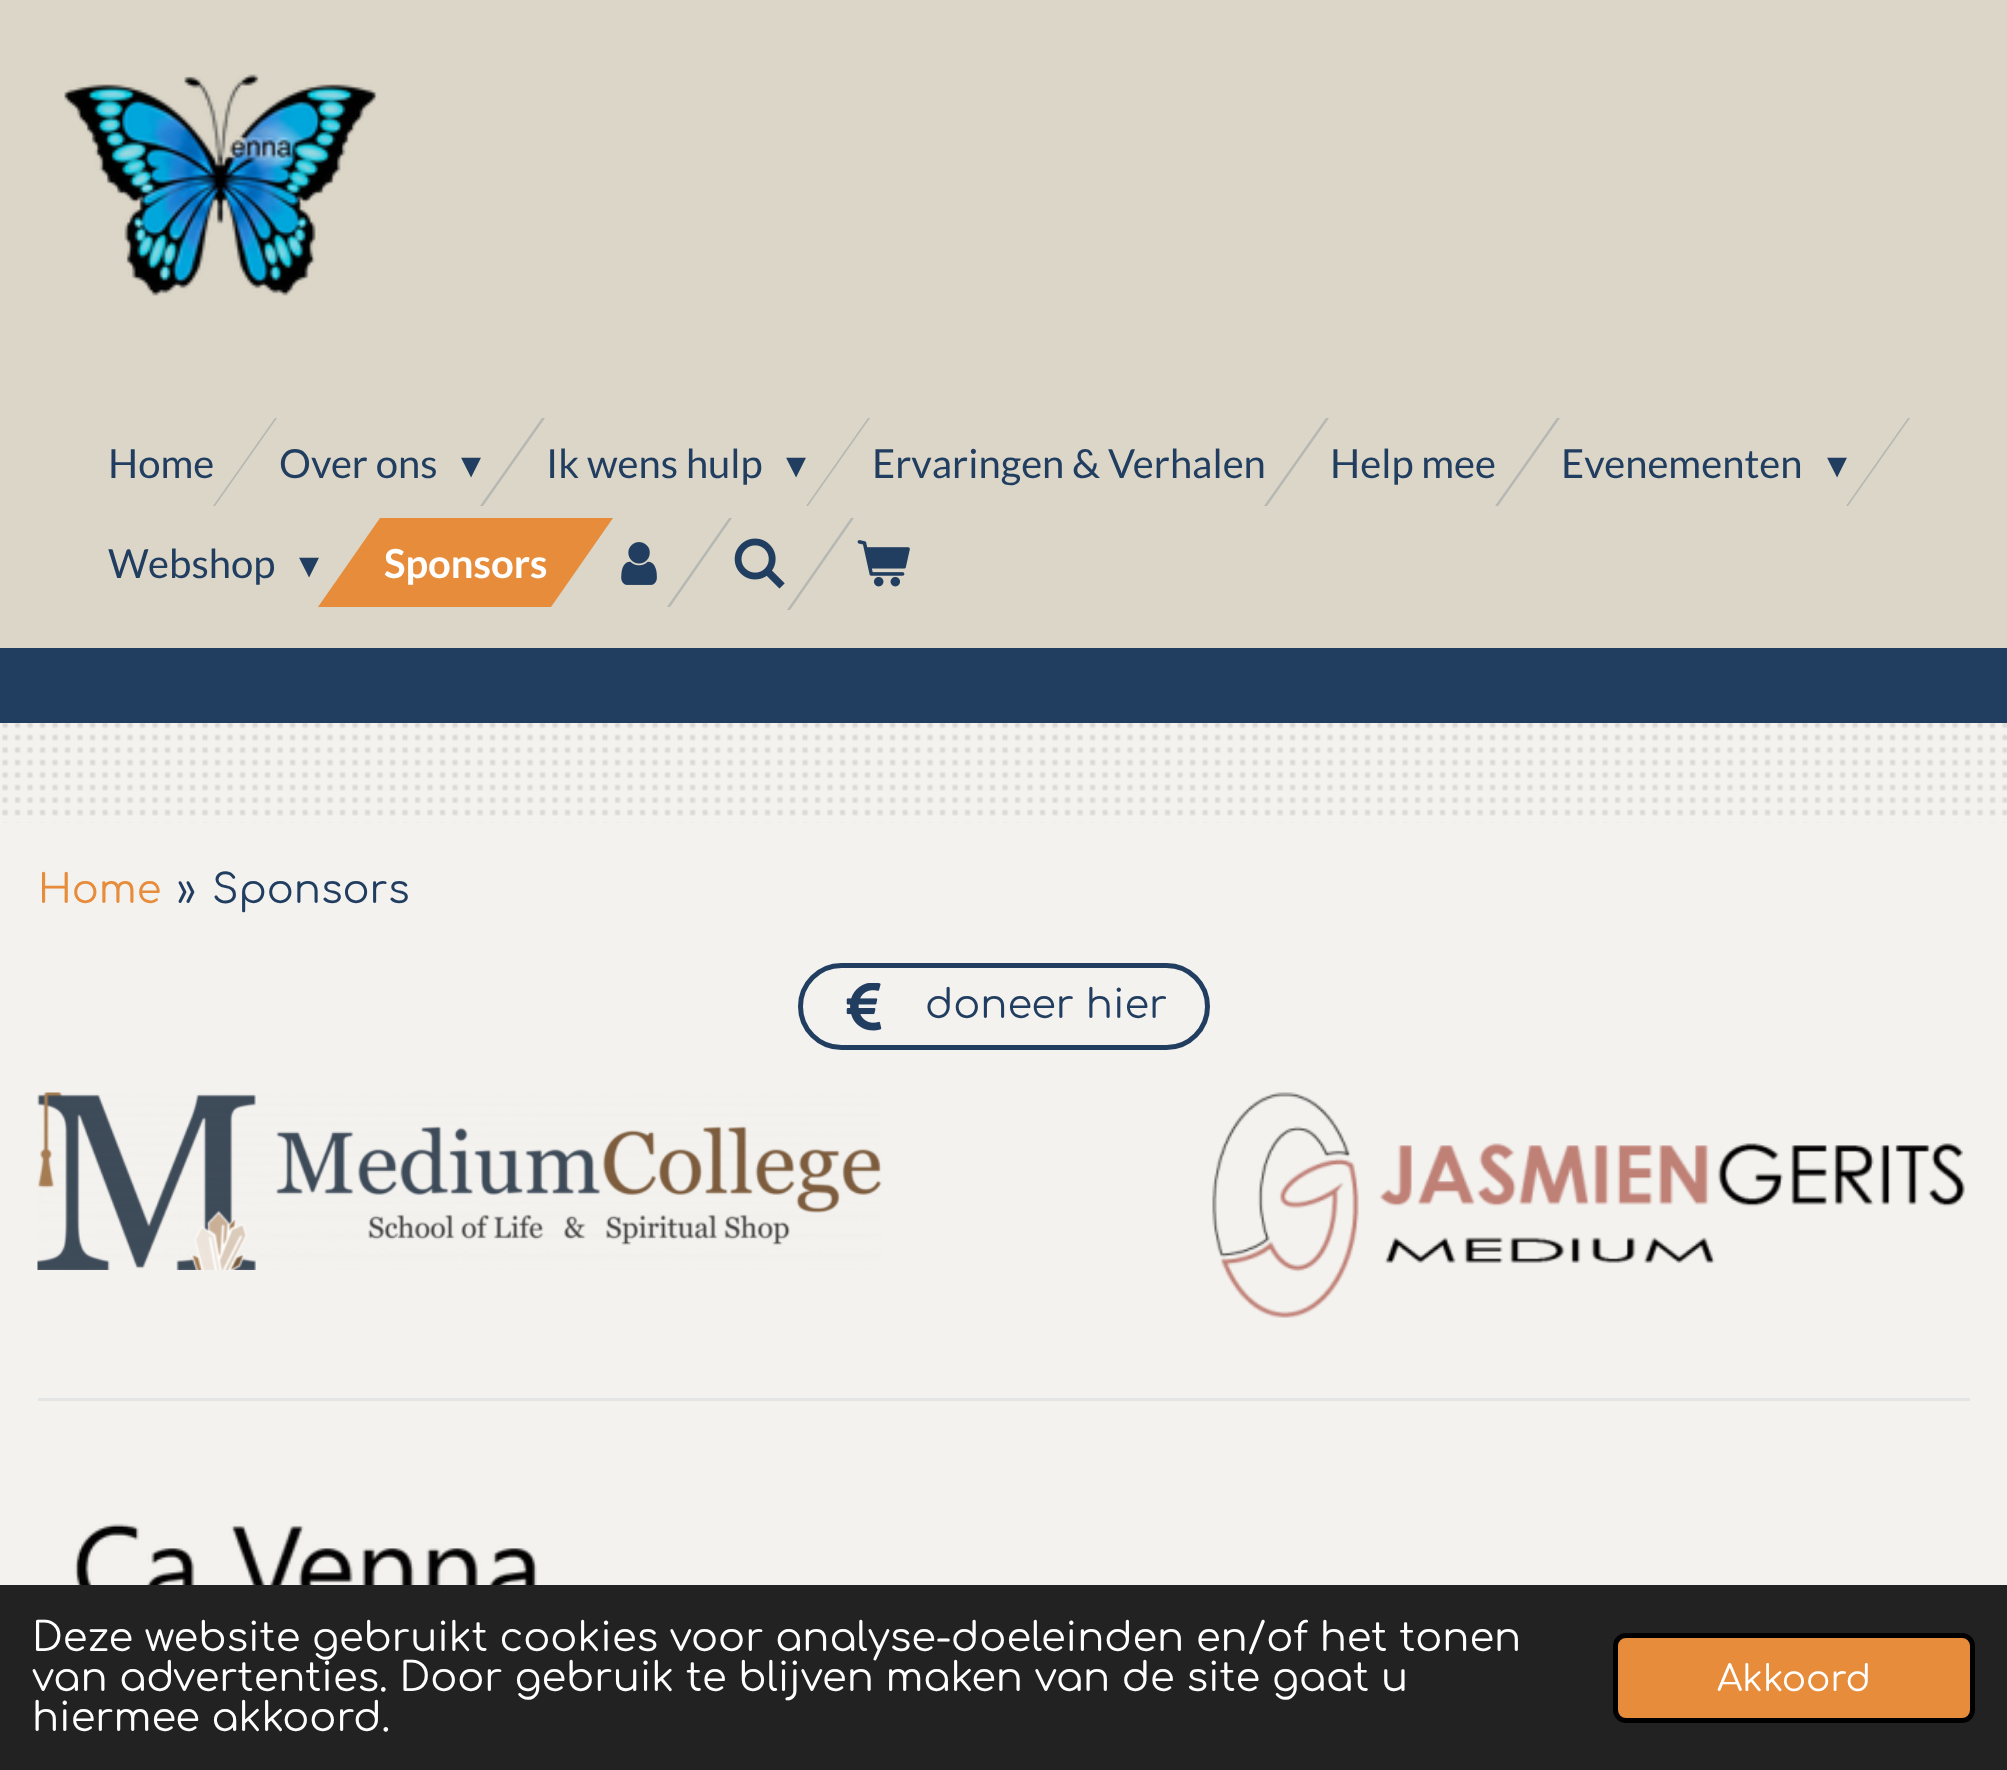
async function draw(canvas) {
  canvas.width = 2007;
  canvas.height = 1770;
  const ctx = canvas.getContext('2d');
  ctx.miterLimit = 4;
  ctx.fontKerning = 'normal';
  function label(s, x, y, font, color) {
    ctx.font = font;
    ctx.fillStyle = color;
    ctx.fillText(s, x, y);
  }
  function rect(x, y, w, h, color) {
    ctx.fillStyle = color;
    ctx.fillRect(x, y, w, h);
  }
  async function image(src, x, y, w, h) {
    const img = new Image();
    img.src = src;
    await img.decode();
    ctx.drawImage(img, x, y, w, h);
  }
  let path;

  rect(0, 0, 2007, 1770, '#f4f2ef');
  rect(0, 0, 2007, 648, '#dbd6c8');
  await image('assets/img1.png', 64, 74, 314, 222);
  label('Home', 108, 478, '40px Lato', '#213e60');
  ctx.fillStyle = '#b6b8b3';
  path = new Path2D('M275 418H277L215 506H213Z');
  ctx.fill(path);
  label('Over ons', 279, 478, '40px Lato', '#213e60');
  ctx.fillStyle = '#b6b8b3';
  path = new Path2D('M542 418H545L483 506H480Z');
  ctx.fill(path);
  label('▾', 461, 478, '40px DejaVu Sans', '#213e60');
  label('Ik wens hulp', 546, 478, '40px Lato', '#213e60');
  ctx.fillStyle = '#b6b8b3';
  path = new Path2D('M868 418H870L808 506H806Z');
  ctx.fill(path);
  label('▾', 786, 478, '40px DejaVu Sans', '#213e60');
  label('Ervaringen & Verhalen', 872, 478, '40px Lato', '#213e60');
  ctx.fillStyle = '#b6b8b3';
  path = new Path2D('M1326 418H1329L1267 506H1264Z');
  ctx.fill(path);
  label('Help mee', 1330, 478, '40px Lato', '#213e60');
  ctx.fillStyle = '#b6b8b3';
  path = new Path2D('M1557 418H1560L1498 506H1495Z');
  ctx.fill(path);
  label('Evenementen', 1561, 478, '40px Lato', '#213e60');
  ctx.fillStyle = '#b6b8b3';
  path = new Path2D('M1908 418H1910L1848 506H1846Z');
  ctx.fill(path);
  label('▾', 1827, 478, '40px DejaVu Sans', '#213e60');
  label('Webshop', 108, 578, '40px Lato', '#213e60');
  label('▾', 299, 578, '40px DejaVu Sans', '#213e60');
  ctx.fillStyle = '#e68c3a';
  path = new Path2D('M380 518H613L551 607H318Z');
  ctx.fill(path);
  label('Sponsors', 384, 578, 'bold 40px Lato', '#fff');
  await image('assets/img2.png', 621, 542, 36, 43);
  ctx.fillStyle = '#b6b8b3';
  path = new Path2D('M729 518H732L670 607H667Z');
  ctx.fill(path);
  await image('assets/img3.png', 734, 538, 51, 51);
  path = new Path2D('M851 518H854L790 610H787Z');
  ctx.fill(path);
  await image('assets/img4.png', 857, 540, 53, 47);
  await image('assets/img5.png', 2, 723, 2005, 100);
  rect(0, 648, 2007, 75, '#213e60');
  label('Home', 38, 903, '40px Comfortaa', '#e68c3a');
  label('»', 177, 903, '40px Comfortaa', '#213e60');
  label('Sponsors', 212, 903, '40px Comfortaa', '#213e60');
  ctx.beginPath();
  ctx.roundRect(800.5, 965.5, 407, 82, 41);
  ctx.strokeStyle = '#213e60';
  ctx.lineWidth = 5;
  ctx.stroke();
  await image('assets/img6.png', 846, 983, 36, 48);
  label('doneer hier', 925, 1018, '40px Comfortaa', '#213e60');
  await image('assets/img7.png', 37, 1092, 845, 178);
  await image('assets/img8.png', 1212, 1092, 753, 226);
  rect(38, 1398, 1932, 3, '#e3e4e4');
  await image('assets/img9.png', 74, 1523, 463, 62);
  rect(0, 1585, 2007, 185, '#222');
  label('Deze website gebruikt cookies voor analyse-doeleinden en/of het tonen', 32, 1651, '40px Comfortaa', '#fff');
  label('van advertenties. Door gebruik te blijven maken van de site gaat u', 32, 1691, '40px Comfortaa', '#fff');
  label('hiermee akkoord.', 32, 1731, '40px Comfortaa', '#fff');
  ctx.fillStyle = '#e68c3a';
  ctx.beginPath();
  ctx.roundRect(1615.5, 1635.5, 357, 85, 10.5);
  ctx.fill();
  ctx.strokeStyle = '#000';
  ctx.stroke();
  label('Akkoord', 1717, 1691, '36px Comfortaa', '#fff');
}

draw(document.querySelector('canvas'));
